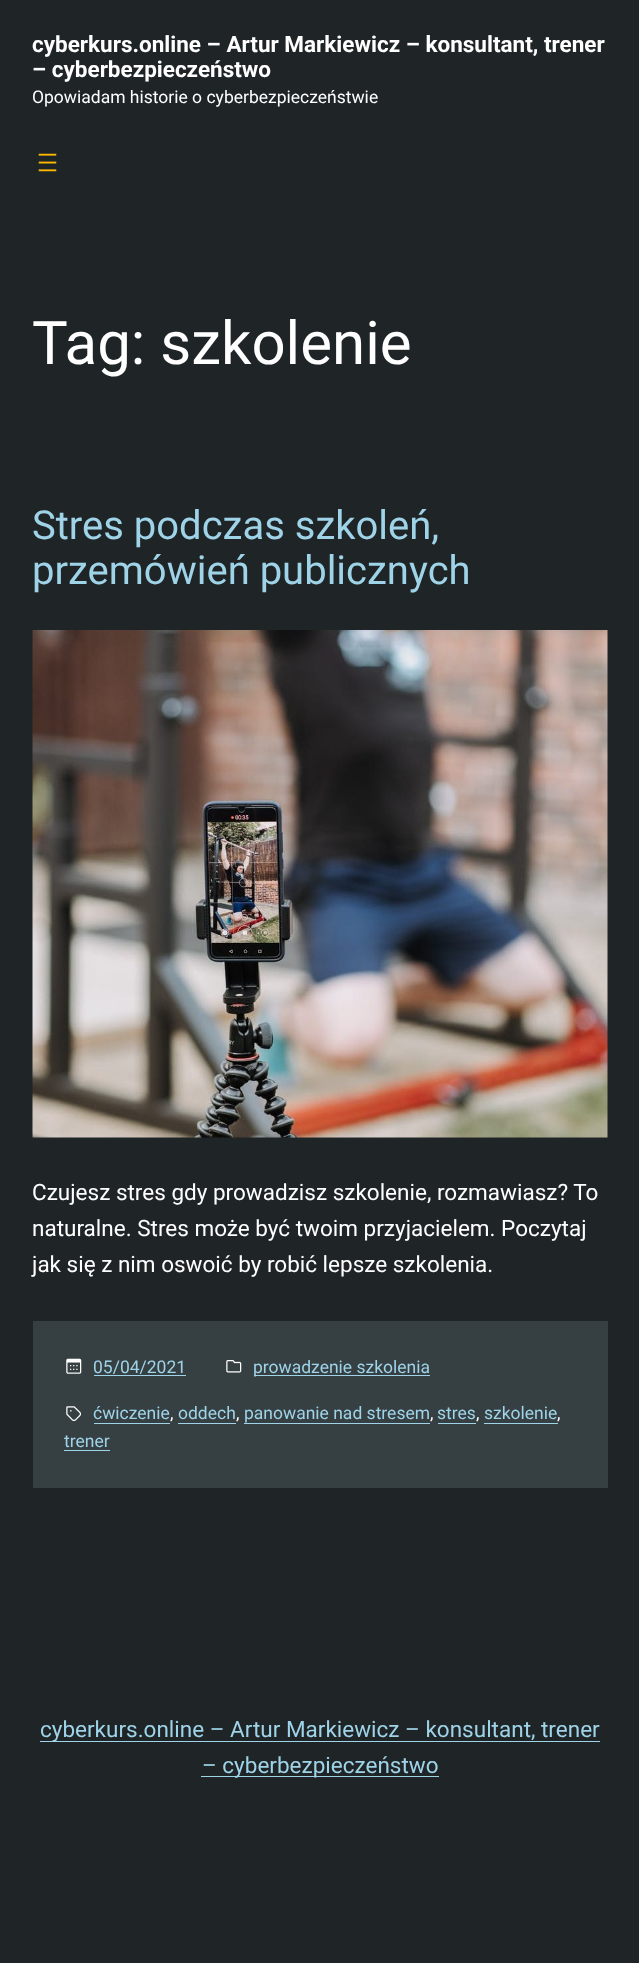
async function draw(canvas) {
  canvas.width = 639;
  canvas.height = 1963;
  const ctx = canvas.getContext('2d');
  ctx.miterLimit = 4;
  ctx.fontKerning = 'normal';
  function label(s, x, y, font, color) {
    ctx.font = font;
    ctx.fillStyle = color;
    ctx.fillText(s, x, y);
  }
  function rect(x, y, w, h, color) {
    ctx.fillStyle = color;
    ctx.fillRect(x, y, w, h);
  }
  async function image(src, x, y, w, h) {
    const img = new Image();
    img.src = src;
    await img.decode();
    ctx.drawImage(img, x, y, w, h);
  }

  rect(0, 0, 639, 1963, '#1f2527');
  label('cyberkurs.online – Artur Markiewicz – konsultant, trener', 32, 52, 'bold 22.5px Roboto', '#fff');
  label('– cyberbezpieczeństwo', 32, 77, 'bold 22.5px Roboto', '#fff');
  label('Opowiadam historie o cyberbezpieczeństwie', 32, 103, '17.5px Roboto', '#fff');
  await image('assets/img1.png', 38, 153, 19, 19);
  label('Tag: szkolenie', 32, 364, '60px Roboto', '#fff');
  label('Stres podczas szkoleń,', 32, 539, '40px Roboto', '#9fd3e8');
  label('przemówień publicznych', 32, 584, '40px Roboto', '#9fd3e8');
  await image('assets/img2.png', 32, 630, 576, 508);
  label('Czujesz stres gdy prowadzisz szkolenie, rozmawiasz? To', 32, 1200, '22.5px Roboto', '#fff');
  label('naturalne. Stres może być twoim przyjacielem. Poczytaj', 32, 1236, '22.5px Roboto', '#fff');
  label('jak się z nim oswoić by robić lepsze szkolenia.', 32, 1272, '22.5px Roboto', '#fff');
  rect(33, 1321, 575, 167, '#364043');
  await image('assets/img3.png', 66, 1358, 16, 16);
  label('05/04/2021', 93, 1373, '17.5px Roboto', '#9fd3e8');
  rect(94, 1375, 92, 1, '#9fd3e8');
  await image('assets/img4.png', 226, 1360, 16, 13);
  rect(254, 1375, 176, 1, '#9fd3e8');
  label('prowadzenie szkolenia', 253, 1373, '17.5px Roboto', '#9fd3e8');
  await image('assets/img5.png', 66, 1406, 16, 16);
  label('ćwiczenie', 93, 1419, '17.5px Roboto', '#9fd3e8');
  rect(94, 1423, 76, 1, '#9fd3e8');
  label(',', 170, 1419, '17.5px Roboto', '#fff');
  label('oddech', 178, 1419, '17.5px Roboto', '#9fd3e8');
  rect(178, 1423, 58, 1, '#9fd3e8');
  label(',', 236, 1419, '17.5px Roboto', '#fff');
  label('panowanie nad stresem', 244, 1419, '17.5px Roboto', '#9fd3e8');
  rect(244, 1423, 186, 1, '#9fd3e8');
  label(',', 430, 1419, '17.5px Roboto', '#fff');
  label('stres', 437, 1419, '17.5px Roboto', '#9fd3e8');
  rect(438, 1423, 38, 1, '#9fd3e8');
  label(',', 476, 1419, '17.5px Roboto', '#fff');
  label('szkolenie', 484, 1419, '17.5px Roboto', '#9fd3e8');
  rect(484, 1423, 74, 1, '#9fd3e8');
  label(',', 557, 1419, '17.5px Roboto', '#fff');
  label('trener', 64, 1447, '17.5px Roboto', '#9fd3e8');
  rect(64, 1450, 46, 1, '#9fd3e8');
  rect(40, 1741, 560, 1, '#9fd3e8');
  label('cyberkurs.online – Artur Markiewicz – konsultant, trener', 40, 1737, '22.5px Roboto', '#9fd3e8');
  rect(201, 1776, 238, 1, '#9fd3e8');
  label('– cyberbezpieczeństwo', 202, 1773, '22.5px Roboto', '#9fd3e8');
}

draw(document.querySelector('canvas'));
